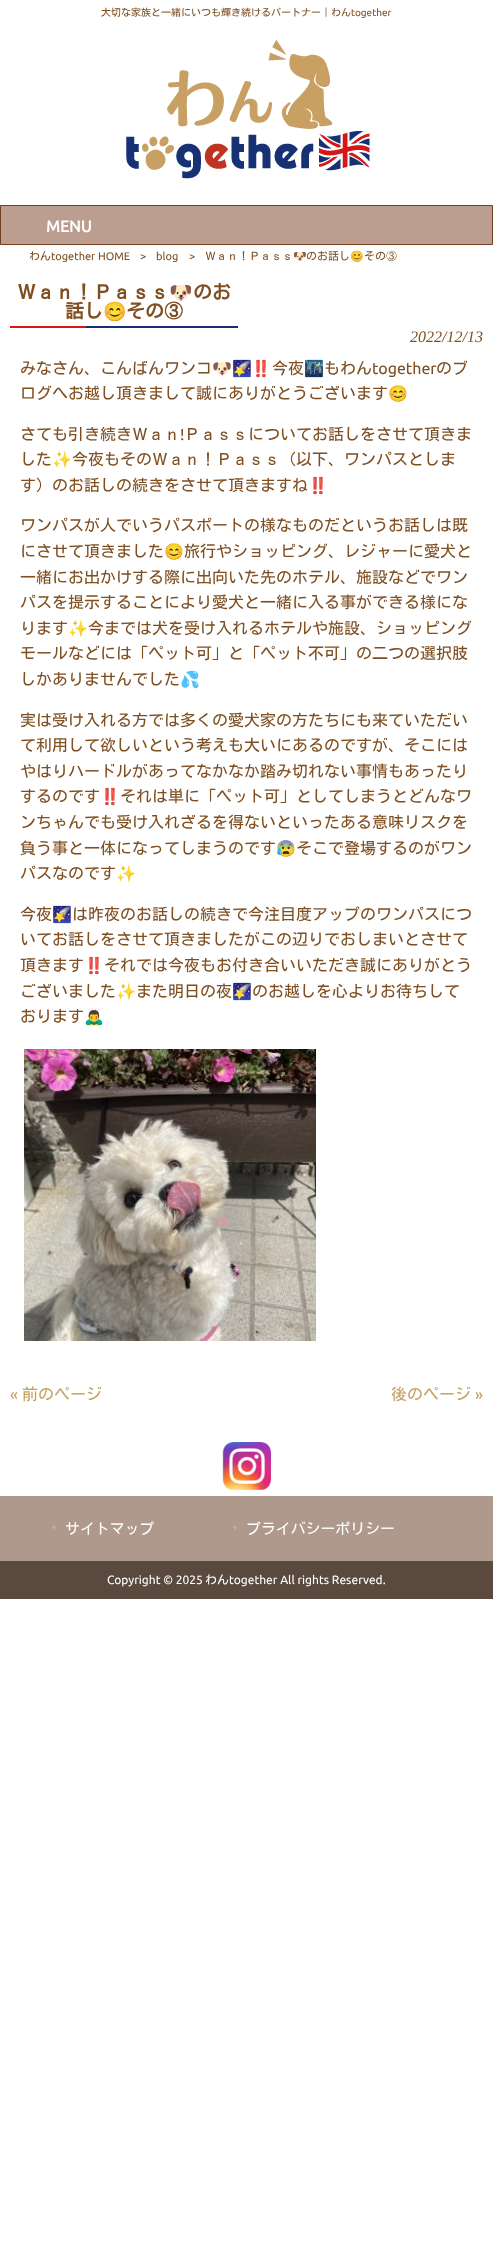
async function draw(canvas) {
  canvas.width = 493;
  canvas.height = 2243;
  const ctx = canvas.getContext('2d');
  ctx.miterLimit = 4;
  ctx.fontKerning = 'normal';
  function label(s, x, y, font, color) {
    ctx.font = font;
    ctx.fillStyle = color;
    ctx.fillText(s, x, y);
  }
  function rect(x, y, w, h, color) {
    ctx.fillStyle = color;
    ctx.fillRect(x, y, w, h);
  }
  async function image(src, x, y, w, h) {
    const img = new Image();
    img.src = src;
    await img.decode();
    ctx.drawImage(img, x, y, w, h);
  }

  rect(0, 0, 493, 2243, '#fff');
  label('大切な家族と一緒にいつも輝き続けるパートナー｜わん', 101, 16, '10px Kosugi', '#7f4f21');
  label('together', 351, 16, '10px Ubuntu', '#7f4f21');
  await image('assets/img1.png', 126, 40, 244, 139);
  ctx.fillStyle = '#bb9e8f';
  ctx.beginPath();
  ctx.rect(0.5, 205.5, 492, 39);
  ctx.fill();
  ctx.strokeStyle = '#773c1e';
  ctx.stroke();
  label('MENU', 46, 232, 'bold 16px Ubuntu', '#fff');
  label('わん', 29, 260, '11px Kosugi', '#7f4f21');
  label('together HOME', 51, 260, '11px Ubuntu', '#7f4f21');
  label('>', 140, 260, '11px Ubuntu', '#7f4f21');
  label('blog', 156, 260, '11px Ubuntu', '#7f4f21');
  label('>', 189, 260, '11px Ubuntu', '#7f4f21');
  label('Ｗａｎ！Ｐａｓｓ', 205, 260, '11px Kosugi', '#7f4f21');
  label('🐶', 293, 260, '11px Noto Color Emoji', '#7f4f21');
  label('のお話し', 306, 260, '11px Kosugi', '#7f4f21');
  label('😊', 350, 260, '11px Noto Color Emoji', '#7f4f21');
  label('その③', 364, 260, '11px Kosugi', '#7f4f21');
  rect(86, 326, 152, 2, '#173176');
  label('Ｗａｎ！Ｐａｓｓ', 17, 299, 'bold 19px Kosugi', '#7f4f21');
  label('🐶', 169, 299, 'bold 19px Noto Color Emoji', '#7f4f21');
  label('のお', 193, 299, 'bold 19px Kosugi', '#7f4f21');
  label('話し', 65, 318, 'bold 19px Kosugi', '#7f4f21');
  label('😊', 103, 318, 'bold 19px Noto Color Emoji', '#7f4f21');
  label('その③', 126, 318, 'bold 19px Kosugi', '#7f4f21');
  rect(10, 326, 76, 2, '#d81617');
  label('2022/12/13', 410, 342, 'italic 16px Liberation Serif', '#7f4f21');
  label('みなさん、こんばんワンコ', 20, 374, '16px Kosugi', '#7f4f21');
  label('🐶🌠‼️', 212, 374, '16px Noto Color Emoji', '#7f4f21');
  label('今夜', 272, 374, '16px Kosugi', '#7f4f21');
  label('🌃', 304, 374, '16px Noto Color Emoji', '#7f4f21');
  label('もわん', 324, 374, '16px Kosugi', '#7f4f21');
  label('together', 372, 374, '16px Ubuntu', '#7f4f21');
  label('のブ', 436, 374, '16px Kosugi', '#7f4f21');
  label('ログへお越し頂きまして誠にありがとうございます', 20, 399, '16px Kosugi', '#7f4f21');
  label('😊', 388, 399, '16px Noto Color Emoji', '#7f4f21');
  label('さても引き続きＷａｎ', 20, 440, '16px Kosugi', '#7f4f21');
  label('!', 180, 440, '16px Ubuntu', '#7f4f21');
  label('Ｐａｓｓについてお話しをさせて頂きま', 184, 440, '16px Kosugi', '#7f4f21');
  label('した', 20, 465, '16px Kosugi', '#7f4f21');
  label('✨', 52, 465, '16px Noto Color Emoji', '#7f4f21');
  label('今夜もそのＷａｎ！Ｐａｓｓ（以下、ワンパスとしま', 72, 465, '16px Kosugi', '#7f4f21');
  label('す）のお話しの続きをさせて頂きますね', 20, 491, '16px Kosugi', '#7f4f21');
  label('‼️', 308, 491, '16px Noto Color Emoji', '#7f4f21');
  label('ワンパスが人でいうパスポートの様なものだというお話しは既', 20, 531, '16px Kosugi', '#7f4f21');
  label('にさせて頂きました', 20, 557, '16px Kosugi', '#7f4f21');
  label('😊', 164, 557, '16px Noto Color Emoji', '#7f4f21');
  label('旅行やショッピング、レジャーに愛犬と', 184, 557, '16px Kosugi', '#7f4f21');
  label('一緒にお出かけする際に出向いた先のホテル、施設などでワン', 20, 583, '16px Kosugi', '#7f4f21');
  label('パスを提示することにより愛犬と一緒に入る事ができる様にな', 20, 608, '16px Kosugi', '#7f4f21');
  label('ります', 20, 634, '16px Kosugi', '#7f4f21');
  label('✨', 68, 634, '16px Noto Color Emoji', '#7f4f21');
  label('今までは犬を受け入れるホテルや施設、ショッピング', 88, 634, '16px Kosugi', '#7f4f21');
  label('モールなどには「ペット可」と「ペット不可」の二つの選択肢', 20, 659, '16px Kosugi', '#7f4f21');
  label('しかありませんでした', 20, 685, '16px Kosugi', '#7f4f21');
  label('💦', 180, 685, '16px Noto Color Emoji', '#7f4f21');
  label('実は受け入れる方では多くの愛犬家の方たちにも来ていただい', 20, 726, '16px Kosugi', '#7f4f21');
  label('て利用して欲しいという考えも大いにあるのですが、そこには', 20, 751, '16px Kosugi', '#7f4f21');
  label('やはりハードルがあってなかなか踏み切れない事情もあったり', 20, 777, '16px Kosugi', '#7f4f21');
  label('するのです', 20, 802, '16px Kosugi', '#7f4f21');
  label('‼️', 100, 802, '16px Noto Color Emoji', '#7f4f21');
  label('それは単に「ペット可」としてしまうとどんなワ', 120, 802, '16px Kosugi', '#7f4f21');
  label('ンちゃんでも受け入れざるを得ないといったある意味リスクを', 20, 828, '16px Kosugi', '#7f4f21');
  label('負う事と一体になってしまうのです', 20, 854, '16px Kosugi', '#7f4f21');
  label('😰', 276, 854, '16px Noto Color Emoji', '#7f4f21');
  label('そこで登場するのがワン', 296, 854, '16px Kosugi', '#7f4f21');
  label('パスなのです', 20, 879, '16px Kosugi', '#7f4f21');
  label('✨', 116, 879, '16px Noto Color Emoji', '#7f4f21');
  label('今夜', 20, 920, '16px Kosugi', '#7f4f21');
  label('🌠', 52, 920, '16px Noto Color Emoji', '#7f4f21');
  label('は昨夜のお話しの続きで今注目度アップのワンパスにつ', 72, 920, '16px Kosugi', '#7f4f21');
  label('いてお話しをさせて頂きましたがこの辺りでおしまいとさせて', 20, 945, '16px Kosugi', '#7f4f21');
  label('頂きます', 20, 971, '16px Kosugi', '#7f4f21');
  label('‼️', 84, 971, '16px Noto Color Emoji', '#7f4f21');
  label('それでは今夜もお付き合いいただき誠にありがとう', 104, 971, '16px Kosugi', '#7f4f21');
  label('ございました', 20, 997, '16px Kosugi', '#7f4f21');
  label('✨', 116, 997, '16px Noto Color Emoji', '#7f4f21');
  label('また明日の夜', 136, 997, '16px Kosugi', '#7f4f21');
  label('🌠', 232, 997, '16px Noto Color Emoji', '#7f4f21');
  label('のお越しを心よりお待ちして', 252, 997, '16px Kosugi', '#7f4f21');
  label('おります', 20, 1022, '16px Kosugi', '#7f4f21');
  label('🙇‍♂️', 84, 1022, '16px Noto Color Emoji', '#7f4f21');
  await image('assets/img2.png', 24, 1049, 292, 292);
  label('«', 10, 1400, '16px Ubuntu', '#c8a161');
  label('前のページ', 22, 1400, '16px Kosugi', '#c8a161');
  label('後のページ', 391, 1400, '16px Kosugi', '#c8a161');
  label('»', 475, 1400, '16px Ubuntu', '#c8a161');
  await image('assets/img3.png', 222, 1442, 49, 48);
  rect(0, 1496, 493, 65, '#ae998c');
  await image('assets/img4.png', 52, 1525, 4, 5);
  label('サイトマップ', 65, 1534, '14.9px Kosugi', '#fff');
  await image('assets/img4.png', 233, 1525, 4, 5);
  label('プライバシーポリシー', 246, 1534, '14.9px Kosugi', '#fff');
  rect(0, 1561, 493, 38, '#59493f');
  label('Copyright © 2025', 107, 1584, '12px Ubuntu', '#fff');
  label('わん', 205, 1584, '12px Kosugi', '#fff');
  label('together All rights Reserved.', 229, 1584, '12px Ubuntu', '#fff');
}

draw(document.querySelector('canvas'));
